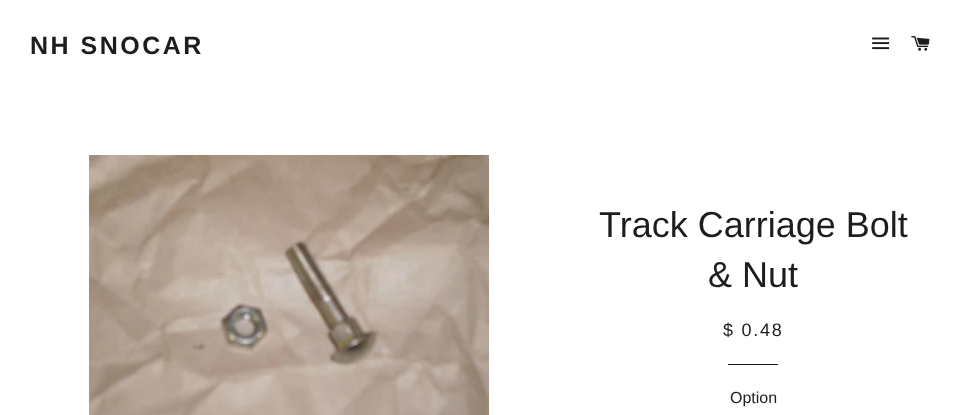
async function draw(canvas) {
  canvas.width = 969;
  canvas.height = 415;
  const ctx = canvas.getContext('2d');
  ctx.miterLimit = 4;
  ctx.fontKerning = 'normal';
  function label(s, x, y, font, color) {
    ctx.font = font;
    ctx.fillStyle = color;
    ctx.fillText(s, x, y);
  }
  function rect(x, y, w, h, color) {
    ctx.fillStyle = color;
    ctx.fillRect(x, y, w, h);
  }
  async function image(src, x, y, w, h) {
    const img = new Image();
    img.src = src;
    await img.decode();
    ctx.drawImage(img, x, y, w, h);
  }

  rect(0, 0, 969, 415, '#fff');
  ctx.letterSpacing = '2.5px';
  label('NH SNOCAR', 30, 54, 'bold 25px Liberation Sans', '#1c1d1d');
  await image('assets/img1.png', 872, 37, 18, 13);
  await image('assets/img2.png', 911, 36, 19, 15);
  await image('assets/img3.png', 89, 155, 400, 260);
  ctx.letterSpacing = '0px';
  label('Track Carriage Bolt', 599, 237, '36px Liberation Sans', '#1c1d1d');
  label('& Nut', 708, 287, '36px Liberation Sans', '#1c1d1d');
  ctx.letterSpacing = '1.75px';
  label('$ 0.48', 723, 336, '18px Liberation Sans', '#1c1d1d');
  rect(728, 364, 50, 1, '#1c1d1d');
  ctx.letterSpacing = '0px';
  label('Option', 730, 403, '16px Liberation Sans', '#1c1d1d');
}

draw(document.querySelector('canvas'));
